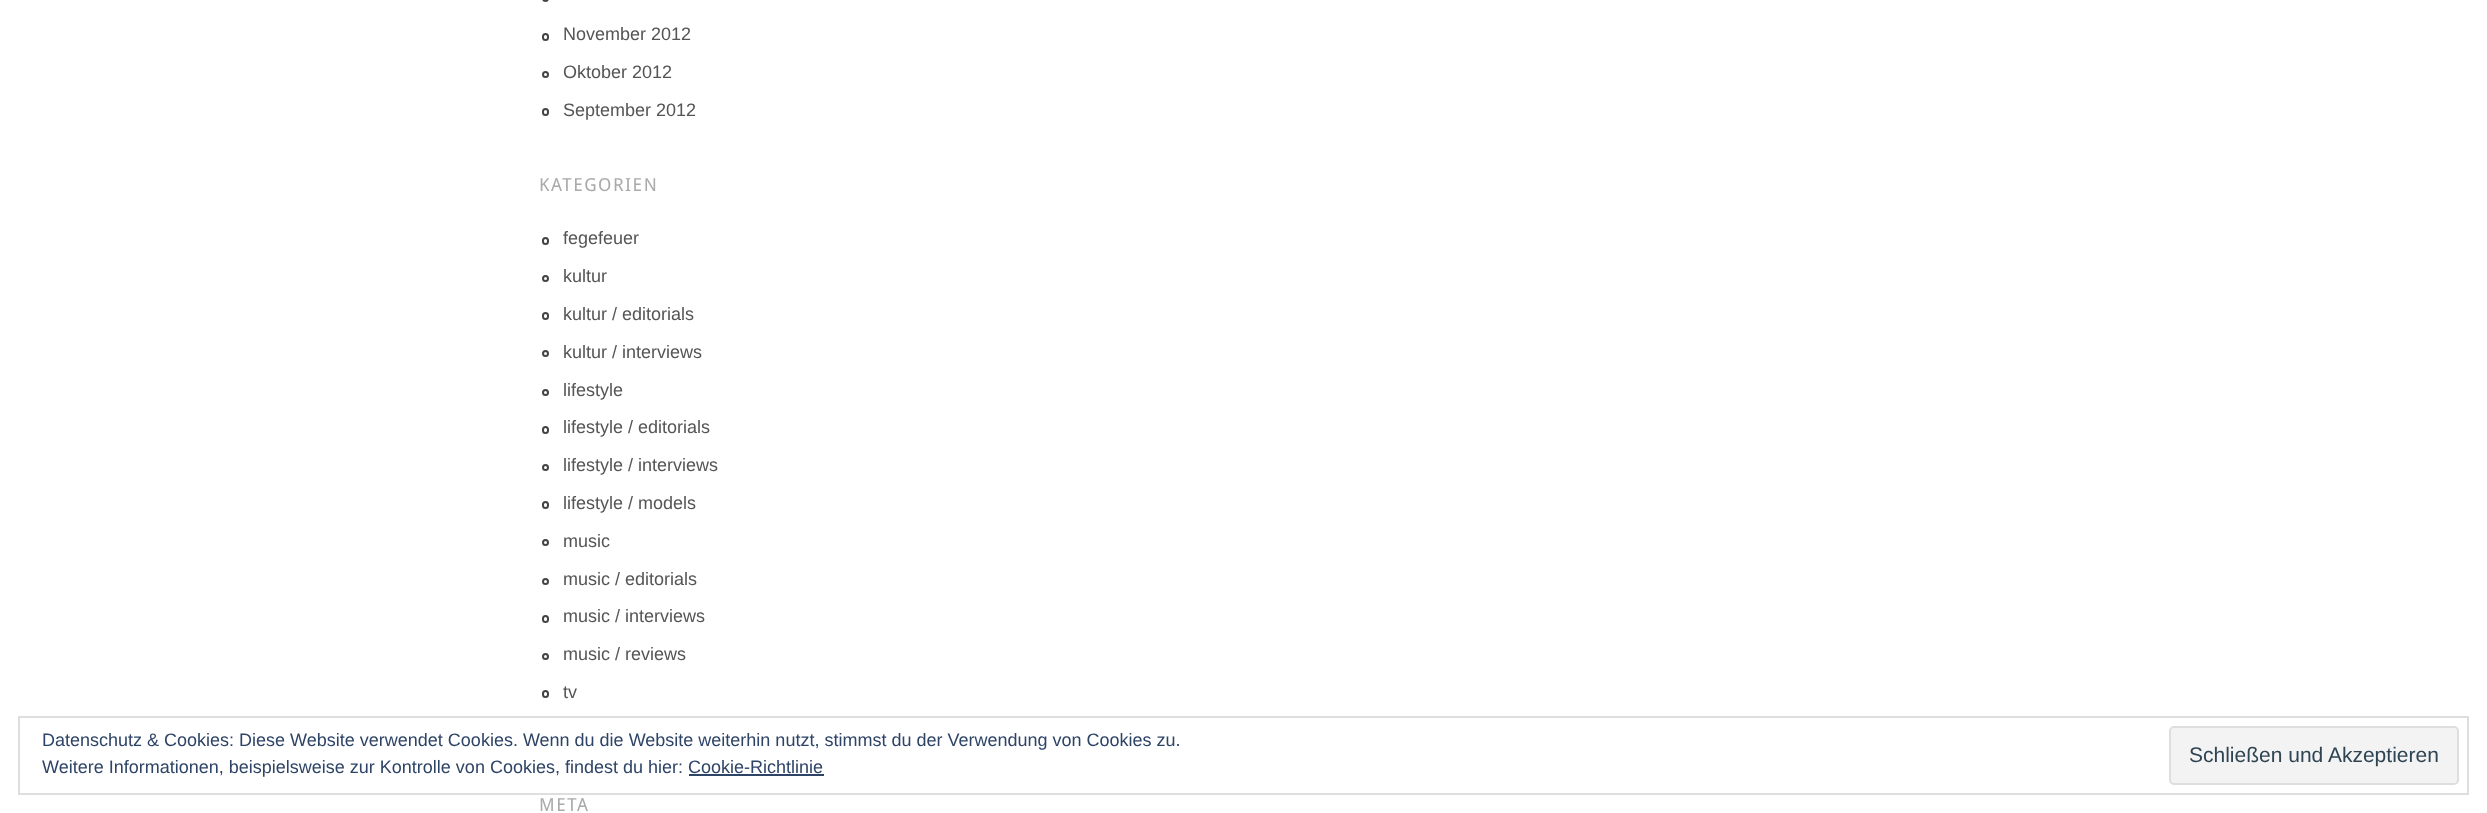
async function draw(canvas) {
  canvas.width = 2487;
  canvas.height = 813;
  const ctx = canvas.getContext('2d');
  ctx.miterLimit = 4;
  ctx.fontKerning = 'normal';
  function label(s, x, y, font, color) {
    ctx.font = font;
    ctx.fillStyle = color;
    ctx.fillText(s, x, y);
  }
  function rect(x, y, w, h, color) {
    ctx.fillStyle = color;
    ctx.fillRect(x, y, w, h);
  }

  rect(0, 0, 2487, 813, '#fff');
  ctx.beginPath();
  ctx.roundRect(543, -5, 5, 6, 2.5);
  ctx.strokeStyle = '#444';
  ctx.lineWidth = 2;
  ctx.stroke();
  ctx.beginPath();
  ctx.roundRect(543, 34, 5, 6, 2.5);
  ctx.stroke();
  label('November 2012', 563, 40, '18px Liberation Sans', '#555');
  ctx.beginPath();
  ctx.arc(545.5, 74.5, 2.5, 0, 2 * Math.PI);
  ctx.stroke();
  label('Oktober 2012', 563, 78, '18px Liberation Sans', '#555');
  ctx.beginPath();
  ctx.roundRect(543, 109, 5, 6, 2.5);
  ctx.stroke();
  label('September 2012', 563, 116, '18px Liberation Sans', '#555');
  ctx.letterSpacing = '1.5px';
  label('KATEGORIEN', 539, 191, '18px Droid Sans', '#aaa');
  ctx.beginPath();
  ctx.roundRect(543, 238, 5, 6, 2.5);
  ctx.stroke();
  ctx.letterSpacing = '0px';
  label('fegefeuer', 563, 244, '18px Liberation Sans', '#555');
  ctx.beginPath();
  ctx.arc(545.5, 278.5, 2.5, 0, 2 * Math.PI);
  ctx.stroke();
  label('kultur', 563, 282, '18px Liberation Sans', '#555');
  ctx.beginPath();
  ctx.roundRect(543, 313, 5, 6, 2.5);
  ctx.stroke();
  label('kultur / editorials', 563, 320, '18px Liberation Sans', '#555');
  ctx.beginPath();
  ctx.arc(545.5, 353.5, 2.5, 0, 2 * Math.PI);
  ctx.stroke();
  label('kultur / interviews', 563, 358, '18px Liberation Sans', '#555');
  ctx.beginPath();
  ctx.arc(545.5, 392.5, 2.5, 0, 2 * Math.PI);
  ctx.stroke();
  label('lifestyle', 563, 396, '18px Liberation Sans', '#555');
  ctx.beginPath();
  ctx.roundRect(543, 427, 5, 6, 2.5);
  ctx.stroke();
  label('lifestyle / editorials', 563, 433, '18px Liberation Sans', '#555');
  ctx.beginPath();
  ctx.arc(545.5, 467.5, 2.5, 0, 2 * Math.PI);
  ctx.stroke();
  label('lifestyle / interviews', 563, 471, '18px Liberation Sans', '#555');
  ctx.beginPath();
  ctx.roundRect(543, 502, 5, 6, 2.5);
  ctx.stroke();
  label('lifestyle / models', 563, 509, '18px Liberation Sans', '#555');
  ctx.beginPath();
  ctx.arc(545.5, 542.5, 2.5, 0, 2 * Math.PI);
  ctx.stroke();
  label('music', 563, 547, '18px Liberation Sans', '#555');
  ctx.beginPath();
  ctx.arc(545.5, 581.5, 2.5, 0, 2 * Math.PI);
  ctx.stroke();
  label('music / editorials', 563, 585, '18px Liberation Sans', '#555');
  ctx.beginPath();
  ctx.roundRect(543, 616, 5, 6, 2.5);
  ctx.stroke();
  label('music / interviews', 563, 622, '18px Liberation Sans', '#555');
  ctx.beginPath();
  ctx.arc(545.5, 656.5, 2.5, 0, 2 * Math.PI);
  ctx.stroke();
  label('music / reviews', 563, 660, '18px Liberation Sans', '#555');
  ctx.beginPath();
  ctx.roundRect(543, 691, 5, 6, 2.5);
  ctx.stroke();
  label('tv', 563, 698, '18px Liberation Sans', '#555');
  ctx.letterSpacing = '1.5px';
  label('META', 539, 811, '18px Droid Sans', '#aaa');
  ctx.strokeStyle = '#dedede';
  ctx.strokeRect(19, 717, 2449, 77);
  ctx.letterSpacing = '0px';
  label('Datenschutz & Cookies: Diese Website verwendet Cookies. Wenn du die Website weiterhin nutzt, stimmst du der Verwendung von Cookies zu.', 42, 746, '18px Liberation Sans', '#2e4467');
  label('Weitere Informationen, beispielsweise zur Kontrolle von Cookies, findest du hier: Cookie-Richtlinie', 42, 773, '18px Liberation Sans', '#2e4467');
  ctx.fillStyle = '#f3f3f3';
  ctx.beginPath();
  ctx.roundRect(2170, 727, 288, 57, 4);
  ctx.fill();
  ctx.stroke();
  label('Schließen und Akzeptieren', 2189, 762, '21px Liberation Sans', '#2e4453');
  rect(689, 774, 135, 2, '#2e4467');
}

draw(document.querySelector('canvas'));
